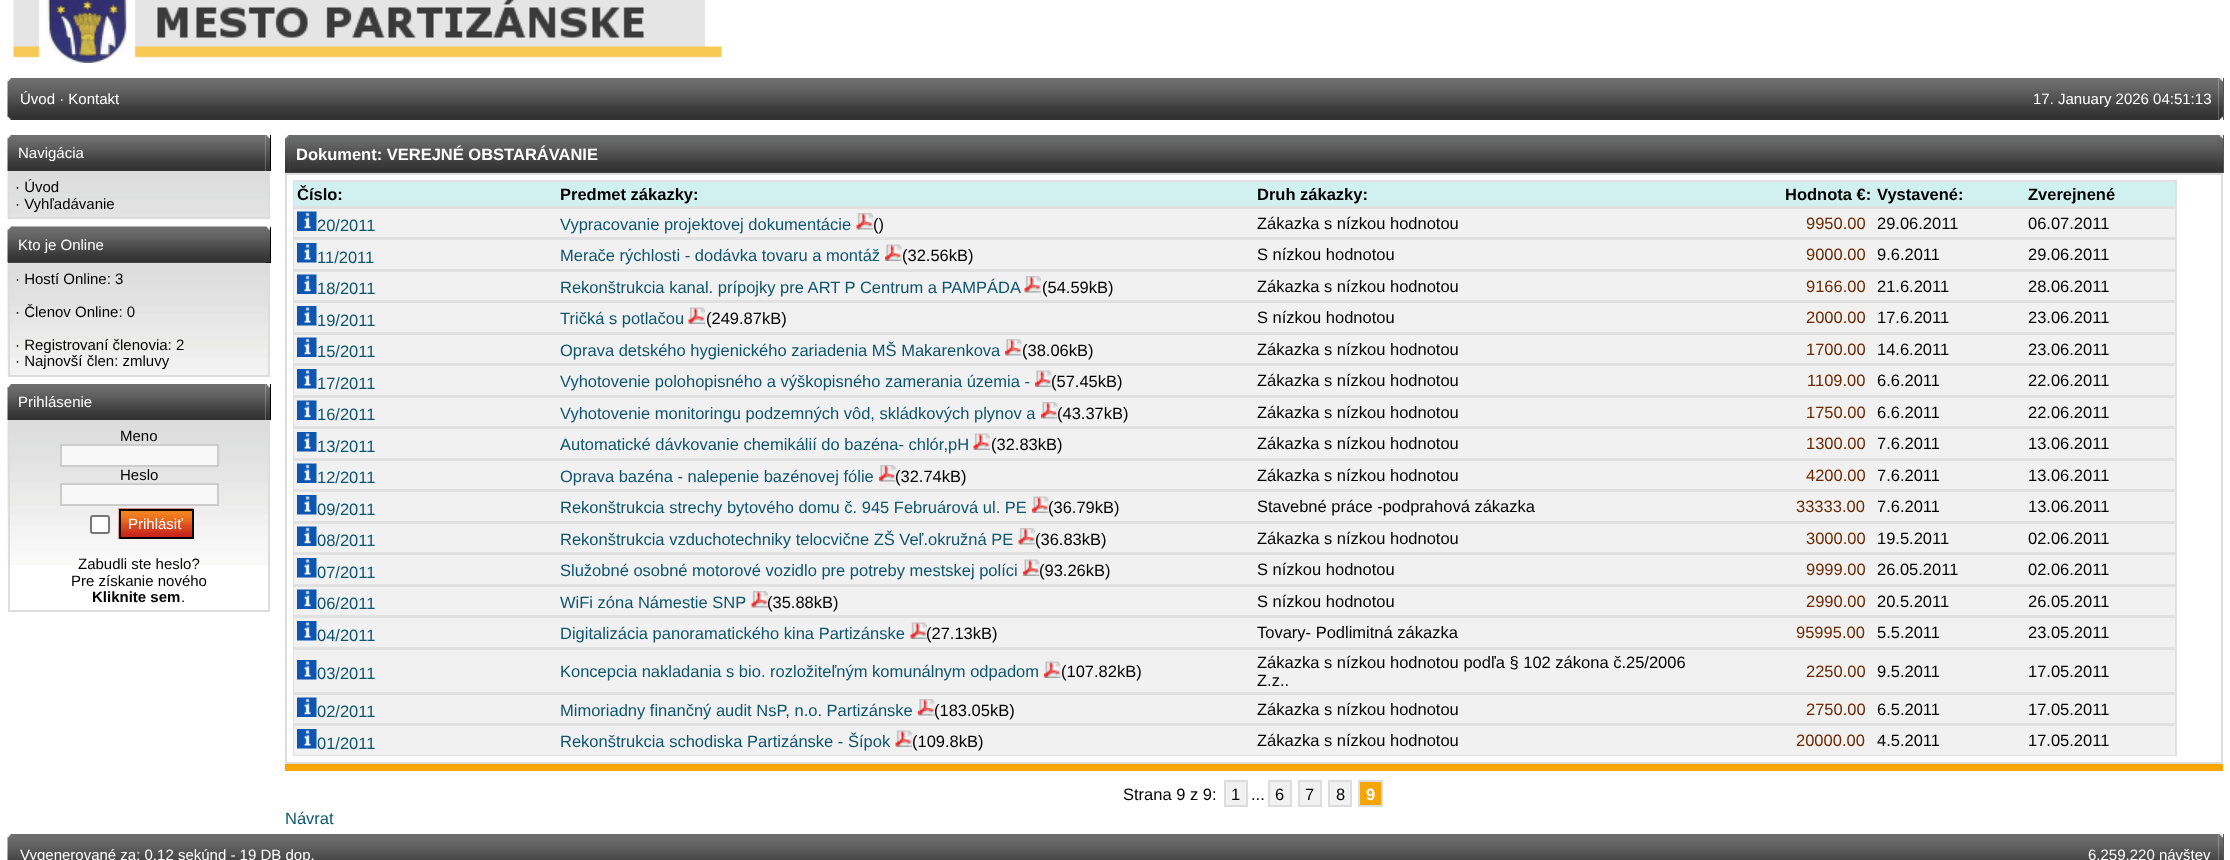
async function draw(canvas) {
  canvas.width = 2230;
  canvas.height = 860;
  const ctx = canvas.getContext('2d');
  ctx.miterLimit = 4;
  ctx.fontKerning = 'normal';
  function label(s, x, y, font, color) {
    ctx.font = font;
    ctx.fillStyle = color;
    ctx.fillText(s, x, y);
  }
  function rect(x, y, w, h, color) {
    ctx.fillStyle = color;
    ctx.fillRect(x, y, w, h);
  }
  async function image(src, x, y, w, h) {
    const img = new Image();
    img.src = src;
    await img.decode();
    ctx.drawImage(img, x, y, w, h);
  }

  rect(0, 0, 2230, 860, '#fff');
  await image('assets/img1.png', 13, 0, 709, 63);
  await image('assets/img2.png', 7, 78, 5, 42);
  await image('assets/img3.png', 12, 78, 819, 42);
  label('Úvod · Kontakt', 20, 104, '15px Liberation Sans', '#fff');
  await image('assets/img4.png', 831, 78, 1388, 42);
  label('17. January 2026 04:51:13', 2033, 104, '15px Liberation Sans', '#fff');
  rect(2223, 78, 1, 42, '#555');
  await image('assets/img5.png', 2218, 78, 5, 42);
  await image('assets/img6.png', 7, 135, 5, 36);
  await image('assets/img7.png', 12, 135, 254, 36);
  label('Navigácia', 18, 158, '15px Liberation Sans', '#fff');
  rect(270, 135, 1, 36, '#000');
  await image('assets/img8.png', 265, 135, 5, 36);
  await image('assets/img9.png', 7, 172, 261, 47);
  ctx.strokeStyle = '#ddd';
  ctx.lineWidth = 2;
  ctx.strokeRect(9, 172, 260, 46);
  label('· Úvod', 15, 192, '15px Liberation Sans', '#000');
  label('· Vyhľadávanie', 15, 209, '15px Liberation Sans', '#000');
  rect(8, 262, 4, 1, '#555');
  await image('assets/img10.png', 7, 226, 5, 37);
  rect(12, 227, 254, 36, '#555');
  await image('assets/img11.png', 12, 226, 254, 37);
  label('Kto je Online', 18, 250, '15px Liberation Sans', '#fff');
  rect(266, 227, 5, 36, '#000');
  await image('assets/img12.png', 265, 226, 5, 37);
  await image('assets/img13.png', 7, 264, 261, 113);
  ctx.strokeRect(9, 264, 260, 112);
  label('· Hostí Online: 3', 15, 284, '15px Liberation Sans', '#000');
  label('· Členov Online: 0', 15, 317, '15px Liberation Sans', '#000');
  label('· Registrovaní členovia: 2', 15, 350, '15px Liberation Sans', '#000');
  label('· Najnovší člen: zmluvy', 15, 366, '15px Liberation Sans', '#000');
  await image('assets/img6.png', 7, 384, 5, 36);
  await image('assets/img7.png', 12, 384, 254, 36);
  label('Prihlásenie', 18, 407, '15px Liberation Sans', '#fff');
  rect(270, 384, 1, 36, '#000');
  await image('assets/img8.png', 265, 384, 5, 36);
  await image('assets/img14.png', 7, 421, 261, 144);
  ctx.strokeRect(9, 421, 260, 190);
  label('Meno', 120, 441, '15px Liberation Sans', '#000');
  ctx.fillStyle = '#f8f8f8';
  ctx.beginPath();
  ctx.rect(61, 445, 157, 21);
  ctx.fill();
  ctx.strokeStyle = '#ccc';
  ctx.stroke();
  label('Heslo', 120, 480, '15px Liberation Sans', '#000');
  ctx.fillStyle = '#f8f8f8';
  ctx.beginPath();
  ctx.rect(61, 484, 157, 21);
  ctx.fill();
  ctx.stroke();
  ctx.fillStyle = '#fff';
  ctx.beginPath();
  ctx.roundRect(91, 516, 18, 17, 2);
  ctx.fill();
  ctx.strokeStyle = '#767676';
  ctx.stroke();
  await image('assets/img15.png', 118, 508, 76, 31);
  ctx.strokeStyle = '#000';
  ctx.strokeRect(120, 510, 73, 28);
  label('Prihlásiť', 128, 529, '15px Liberation Sans', '#fff');
  label('Zabudli ste heslo?', 78, 569, '15px Liberation Sans', '#000');
  label('Pre získanie nového', 71, 586, '15px Liberation Sans', '#000');
  label('Kliknite sem', 92, 602, 'bold 15px Liberation Sans', '#000');
  label('.', 181, 602, '15px Liberation Sans', '#000');
  rect(285, 135, 1939, 38, '#555');
  await image('assets/img16.png', 285, 135, 5, 38);
  await image('assets/img17.png', 289, 135, 1930, 38);
  label('Dokument: VEREJNÉ OBSTARÁVANIE', 296, 160, 'bold 16.5px Liberation Sans', '#fff');
  await image('assets/img18.png', 2218, 135, 5, 38);
  ctx.strokeStyle = '#ddd';
  ctx.strokeRect(286, 174, 1936, 589);
  ctx.strokeStyle = '#e1e1e1';
  ctx.strokeRect(294, 181, 1882, 25);
  rect(294, 182, 1881, 24, '#d1f1f1');
  label('Číslo:', 297, 200, 'bold 16.5px Liberation Sans', '#000');
  label('Predmet zákazky:', 560, 200, 'bold 16.5px Liberation Sans', '#000');
  label('Druh zákazky:', 1257, 200, 'bold 16.5px Liberation Sans', '#000');
  label('Hodnota €:', 1785, 200, 'bold 16.5px Liberation Sans', '#000');
  label('Vystavené:', 1877, 200, 'bold 16.5px Liberation Sans', '#000');
  label('Zverejnené', 2028, 200, 'bold 16.5px Liberation Sans', '#000');
  ctx.strokeRect(294, 208, 1882, 30);
  rect(294, 209, 1881, 28, '#f1f1f1');
  await image('assets/img19.png', 297, 211, 20, 20);
  label('20/2011', 317, 231, '16.5px Liberation Sans', '#0d546e');
  label('Vypracovanie projektovej dokumentácie', 560, 230, '16.5px Liberation Sans', '#0d546e');
  await image('assets/img20.png', 856, 213, 17, 17);
  label('()', 873, 230, '16.5px Liberation Sans', '#000');
  label('Zákazka s nízkou hodnotou', 1257, 229, '16.5px Liberation Sans', '#000');
  label('9950.00', 1806, 229, '16.5px Liberation Sans', '#6b2901');
  label('29.06.2011', 1877, 229, '16.5px Liberation Sans', '#000');
  label('06.07.2011', 2028, 229, '16.5px Liberation Sans', '#000');
  ctx.strokeRect(294, 240, 1882, 29);
  rect(294, 240, 1881, 29, '#f1f1f1');
  await image('assets/img21.png', 297, 243, 20, 20);
  label('11/2011', 317, 263, '16.5px Liberation Sans', '#0d546e');
  label('Merače rýchlosti - dodávka tovaru a montáž', 560, 261, '16.5px Liberation Sans', '#0d546e');
  await image('assets/img22.png', 885, 244, 17, 17);
  label('(32.56kB)', 902, 261, '16.5px Liberation Sans', '#000');
  label('S nízkou hodnotou', 1257, 260, '16.5px Liberation Sans', '#000');
  label('9000.00', 1806, 260, '16.5px Liberation Sans', '#6b2901');
  label('9.6.2011', 1877, 260, '16.5px Liberation Sans', '#000');
  label('29.06.2011', 2028, 260, '16.5px Liberation Sans', '#000');
  ctx.strokeRect(294, 271, 1882, 30);
  rect(294, 272, 1881, 28, '#f1f1f1');
  await image('assets/img19.png', 297, 274, 20, 20);
  label('18/2011', 317, 294, '16.5px Liberation Sans', '#0d546e');
  label('Rekonštrukcia kanal. prípojky pre ART P Centrum a PAMPÁDA', 560, 293, '16.5px Liberation Sans', '#0d546e');
  await image('assets/img23.png', 1024, 276, 17, 17);
  label('(54.59kB)', 1042, 293, '16.5px Liberation Sans', '#000');
  label('Zákazka s nízkou hodnotou', 1257, 292, '16.5px Liberation Sans', '#000');
  label('9166.00', 1806, 292, '16.5px Liberation Sans', '#6b2901');
  label('21.6.2011', 1877, 292, '16.5px Liberation Sans', '#000');
  label('28.06.2011', 2028, 292, '16.5px Liberation Sans', '#000');
  ctx.strokeRect(294, 303, 1882, 29);
  rect(294, 303, 1881, 29, '#f1f1f1');
  await image('assets/img21.png', 297, 306, 20, 20);
  label('19/2011', 317, 326, '16.5px Liberation Sans', '#0d546e');
  label('Tričká s potlačou', 560, 324, '16.5px Liberation Sans', '#0d546e');
  await image('assets/img24.png', 688, 307, 17, 17);
  label('(249.87kB)', 706, 324, '16.5px Liberation Sans', '#000');
  label('S nízkou hodnotou', 1257, 323, '16.5px Liberation Sans', '#000');
  label('2000.00', 1806, 323, '16.5px Liberation Sans', '#6b2901');
  label('17.6.2011', 1877, 323, '16.5px Liberation Sans', '#000');
  label('23.06.2011', 2028, 323, '16.5px Liberation Sans', '#000');
  ctx.strokeRect(294, 334, 1882, 30);
  rect(294, 335, 1881, 28, '#f1f1f1');
  await image('assets/img19.png', 297, 337, 20, 20);
  label('15/2011', 317, 357, '16.5px Liberation Sans', '#0d546e');
  label('Oprava detského hygienického zariadenia MŠ Makarenkova', 560, 356, '16.5px Liberation Sans', '#0d546e');
  await image('assets/img25.png', 1005, 339, 17, 17);
  label('(38.06kB)', 1022, 356, '16.5px Liberation Sans', '#000');
  label('Zákazka s nízkou hodnotou', 1257, 355, '16.5px Liberation Sans', '#000');
  label('1700.00', 1806, 355, '16.5px Liberation Sans', '#6b2901');
  label('14.6.2011', 1877, 355, '16.5px Liberation Sans', '#000');
  label('23.06.2011', 2028, 355, '16.5px Liberation Sans', '#000');
  ctx.strokeRect(294, 366, 1882, 29);
  rect(294, 366, 1881, 29, '#f1f1f1');
  await image('assets/img21.png', 297, 369, 20, 20);
  label('17/2011', 317, 389, '16.5px Liberation Sans', '#0d546e');
  label('Vyhotovenie polohopisného a výškopisného zamerania územia -', 560, 387, '16.5px Liberation Sans', '#0d546e');
  await image('assets/img26.png', 1035, 370, 17, 17);
  label('(57.45kB)', 1051, 387, '16.5px Liberation Sans', '#000');
  label('Zákazka s nízkou hodnotou', 1257, 386, '16.5px Liberation Sans', '#000');
  label('1109.00', 1807, 386, '16.5px Liberation Sans', '#6b2901');
  label('6.6.2011', 1877, 386, '16.5px Liberation Sans', '#000');
  label('22.06.2011', 2028, 386, '16.5px Liberation Sans', '#000');
  ctx.strokeRect(294, 397, 1882, 30);
  rect(294, 398, 1881, 28, '#f1f1f1');
  await image('assets/img19.png', 297, 400, 20, 20);
  label('16/2011', 317, 420, '16.5px Liberation Sans', '#0d546e');
  label('Vyhotovenie monitoringu podzemných vôd, skládkových plynov a', 560, 419, '16.5px Liberation Sans', '#0d546e');
  await image('assets/img27.png', 1041, 402, 17, 17);
  label('(43.37kB)', 1057, 419, '16.5px Liberation Sans', '#000');
  label('Zákazka s nízkou hodnotou', 1257, 418, '16.5px Liberation Sans', '#000');
  label('1750.00', 1806, 418, '16.5px Liberation Sans', '#6b2901');
  label('6.6.2011', 1877, 418, '16.5px Liberation Sans', '#000');
  label('22.06.2011', 2028, 418, '16.5px Liberation Sans', '#000');
  ctx.strokeRect(294, 429, 1882, 29);
  rect(294, 429, 1881, 29, '#f1f1f1');
  await image('assets/img21.png', 297, 432, 20, 20);
  label('13/2011', 317, 452, '16.5px Liberation Sans', '#0d546e');
  label('Automatické dávkovanie chemikálií do bazéna- chlór,pH', 560, 450, '16.5px Liberation Sans', '#0d546e');
  await image('assets/img28.png', 973, 433, 17, 17);
  label('(32.83kB)', 991, 450, '16.5px Liberation Sans', '#000');
  label('Zákazka s nízkou hodnotou', 1257, 449, '16.5px Liberation Sans', '#000');
  label('1300.00', 1806, 449, '16.5px Liberation Sans', '#6b2901');
  label('7.6.2011', 1877, 449, '16.5px Liberation Sans', '#000');
  label('13.06.2011', 2028, 449, '16.5px Liberation Sans', '#000');
  ctx.strokeRect(294, 460, 1882, 30);
  rect(294, 461, 1881, 28, '#f1f1f1');
  await image('assets/img19.png', 297, 463, 20, 20);
  label('12/2011', 317, 483, '16.5px Liberation Sans', '#0d546e');
  label('Oprava bazéna - nalepenie bazénovej fólie', 560, 482, '16.5px Liberation Sans', '#0d546e');
  await image('assets/img25.png', 879, 465, 17, 17);
  label('(32.74kB)', 895, 482, '16.5px Liberation Sans', '#000');
  label('Zákazka s nízkou hodnotou', 1257, 481, '16.5px Liberation Sans', '#000');
  label('4200.00', 1806, 481, '16.5px Liberation Sans', '#6b2901');
  label('7.6.2011', 1877, 481, '16.5px Liberation Sans', '#000');
  label('13.06.2011', 2028, 481, '16.5px Liberation Sans', '#000');
  ctx.strokeRect(294, 492, 1882, 29);
  rect(294, 492, 1881, 29, '#f1f1f1');
  await image('assets/img21.png', 297, 495, 20, 20);
  label('09/2011', 317, 515, '16.5px Liberation Sans', '#0d546e');
  label('Rekonštrukcia strechy bytového domu č. 945 Februárová ul. PE', 560, 513, '16.5px Liberation Sans', '#0d546e');
  await image('assets/img26.png', 1032, 496, 17, 17);
  label('(36.79kB)', 1048, 513, '16.5px Liberation Sans', '#000');
  label('Stavebné práce -podprahová zákazka', 1257, 512, '16.5px Liberation Sans', '#000');
  label('33333.00', 1796, 512, '16.5px Liberation Sans', '#6b2901');
  label('7.6.2011', 1877, 512, '16.5px Liberation Sans', '#000');
  label('13.06.2011', 2028, 512, '16.5px Liberation Sans', '#000');
  ctx.strokeRect(294, 523, 1882, 30);
  rect(294, 524, 1881, 28, '#f1f1f1');
  await image('assets/img19.png', 297, 526, 20, 20);
  label('08/2011', 317, 546, '16.5px Liberation Sans', '#0d546e');
  label('Rekonštrukcia vzduchotechniky telocvične ZŠ Veľ.okružná PE', 560, 545, '16.5px Liberation Sans', '#0d546e');
  await image('assets/img20.png', 1018, 528, 17, 17);
  label('(36.83kB)', 1035, 545, '16.5px Liberation Sans', '#000');
  label('Zákazka s nízkou hodnotou', 1257, 544, '16.5px Liberation Sans', '#000');
  label('3000.00', 1806, 544, '16.5px Liberation Sans', '#6b2901');
  label('19.5.2011', 1877, 544, '16.5px Liberation Sans', '#000');
  label('02.06.2011', 2028, 544, '16.5px Liberation Sans', '#000');
  ctx.strokeRect(294, 555, 1882, 29);
  rect(294, 555, 1881, 29, '#f1f1f1');
  await image('assets/img21.png', 297, 558, 20, 20);
  label('07/2011', 317, 578, '16.5px Liberation Sans', '#0d546e');
  label('Služobné osobné motorové vozidlo pre potreby mestskej políci', 560, 576, '16.5px Liberation Sans', '#0d546e');
  await image('assets/img26.png', 1023, 559, 17, 17);
  label('(93.26kB)', 1039, 576, '16.5px Liberation Sans', '#000');
  label('S nízkou hodnotou', 1257, 575, '16.5px Liberation Sans', '#000');
  label('9999.00', 1806, 575, '16.5px Liberation Sans', '#6b2901');
  label('26.05.2011', 1877, 575, '16.5px Liberation Sans', '#000');
  label('02.06.2011', 2028, 575, '16.5px Liberation Sans', '#000');
  ctx.strokeRect(294, 586, 1882, 30);
  rect(294, 587, 1881, 28, '#f1f1f1');
  await image('assets/img19.png', 297, 589, 20, 20);
  label('06/2011', 317, 609, '16.5px Liberation Sans', '#0d546e');
  label('WiFi zóna Námestie SNP', 560, 608, '16.5px Liberation Sans', '#0d546e');
  await image('assets/img29.png', 751, 591, 17, 17);
  label('(35.88kB)', 767, 608, '16.5px Liberation Sans', '#000');
  label('S nízkou hodnotou', 1257, 607, '16.5px Liberation Sans', '#000');
  label('2990.00', 1806, 607, '16.5px Liberation Sans', '#6b2901');
  label('20.5.2011', 1877, 607, '16.5px Liberation Sans', '#000');
  label('26.05.2011', 2028, 607, '16.5px Liberation Sans', '#000');
  ctx.strokeRect(294, 618, 1882, 29);
  rect(294, 618, 1881, 29, '#f1f1f1');
  await image('assets/img21.png', 297, 621, 20, 20);
  label('04/2011', 317, 641, '16.5px Liberation Sans', '#0d546e');
  label('Digitalizácia panoramatického kina Partizánske', 560, 639, '16.5px Liberation Sans', '#0d546e');
  await image('assets/img28.png', 910, 622, 17, 17);
  label('(27.13kB)', 926, 639, '16.5px Liberation Sans', '#000');
  label('Tovary- Podlimitná zákazka', 1257, 638, '16.5px Liberation Sans', '#000');
  label('95995.00', 1796, 638, '16.5px Liberation Sans', '#6b2901');
  label('5.5.2011', 1877, 638, '16.5px Liberation Sans', '#000');
  label('23.05.2011', 2028, 638, '16.5px Liberation Sans', '#000');
  ctx.strokeRect(294, 649, 1882, 43);
  rect(294, 650, 1881, 42, '#f1f1f1');
  await image('assets/img21.png', 297, 660, 20, 20);
  label('03/2011', 317, 679, '16.5px Liberation Sans', '#0d546e');
  label('Koncepcia nakladania s bio. rozložiteľným komunálnym odpadom', 560, 677, '16.5px Liberation Sans', '#0d546e');
  await image('assets/img26.png', 1044, 661, 17, 17);
  label('(107.82kB)', 1061, 677, '16.5px Liberation Sans', '#000');
  label('Zákazka s nízkou hodnotou podľa § 102 zákona č.25/2006', 1257, 668, '16.5px Liberation Sans', '#000');
  label('Z.z..', 1257, 686, '16.5px Liberation Sans', '#000');
  label('2250.00', 1806, 677, '16.5px Liberation Sans', '#6b2901');
  label('9.5.2011', 1877, 677, '16.5px Liberation Sans', '#000');
  label('17.05.2011', 2028, 677, '16.5px Liberation Sans', '#000');
  ctx.strokeRect(294, 694, 1882, 30);
  rect(294, 695, 1881, 28, '#f1f1f1');
  await image('assets/img19.png', 297, 697, 20, 20);
  label('02/2011', 317, 717, '16.5px Liberation Sans', '#0d546e');
  label('Mimoriadny finančný audit NsP, n.o. Partizánske', 560, 716, '16.5px Liberation Sans', '#0d546e');
  await image('assets/img25.png', 918, 699, 17, 17);
  label('(183.05kB)', 934, 716, '16.5px Liberation Sans', '#000');
  label('Zákazka s nízkou hodnotou', 1257, 715, '16.5px Liberation Sans', '#000');
  label('2750.00', 1806, 715, '16.5px Liberation Sans', '#6b2901');
  label('6.5.2011', 1877, 715, '16.5px Liberation Sans', '#000');
  label('17.05.2011', 2028, 715, '16.5px Liberation Sans', '#000');
  ctx.strokeRect(294, 726, 1882, 29);
  rect(294, 726, 1881, 29, '#f1f1f1');
  await image('assets/img21.png', 297, 729, 20, 20);
  label('01/2011', 317, 749, '16.5px Liberation Sans', '#0d546e');
  label('Rekonštrukcia schodiska Partizánske - Šípok', 560, 747, '16.5px Liberation Sans', '#0d546e');
  await image('assets/img28.png', 895, 730, 17, 17);
  label('(109.8kB)', 912, 747, '16.5px Liberation Sans', '#000');
  label('Zákazka s nízkou hodnotou', 1257, 746, '16.5px Liberation Sans', '#000');
  label('20000.00', 1796, 746, '16.5px Liberation Sans', '#6b2901');
  label('4.5.2011', 1877, 746, '16.5px Liberation Sans', '#000');
  label('17.05.2011', 2028, 746, '16.5px Liberation Sans', '#000');
  rect(285, 764, 1938, 7, '#f6a504');
  label('Strana 9 z 9:', 1123, 800, '16.5px Liberation Sans', '#000');
  ctx.fillStyle = '#f1f1f1';
  ctx.beginPath();
  ctx.rect(1225, 781, 22, 25);
  ctx.fill();
  ctx.strokeStyle = '#ddd';
  ctx.stroke();
  label('1', 1231, 800, '16.5px Liberation Sans', '#000');
  label('...', 1251, 800, '16.5px Liberation Sans', '#000');
  ctx.fillStyle = '#f1f1f1';
  ctx.beginPath();
  ctx.rect(1269, 781, 22, 25);
  ctx.fill();
  ctx.stroke();
  label('6', 1275, 800, '16.5px Liberation Sans', '#000');
  ctx.fillStyle = '#f1f1f1';
  ctx.beginPath();
  ctx.rect(1299, 781, 22, 25);
  ctx.fill();
  ctx.stroke();
  label('7', 1305, 800, '16.5px Liberation Sans', '#000');
  ctx.fillStyle = '#f1f1f1';
  ctx.beginPath();
  ctx.rect(1329, 781, 22, 25);
  ctx.fill();
  ctx.stroke();
  label('8', 1336, 800, '16.5px Liberation Sans', '#000');
  ctx.fillStyle = '#f6a504';
  ctx.beginPath();
  ctx.rect(1359, 781, 23, 25);
  ctx.fill();
  ctx.stroke();
  label('9', 1366, 800, 'bold 16.5px Liberation Sans', '#fff');
  label('Návrat', 285, 824, '16.5px Liberation Sans', '#0d546e');
  await image('assets/img30.png', 7, 834, 5, 26);
  await image('assets/img31.png', 12, 834, 1527, 26);
  label('Vygenerované za: 0.12 sekúnd - 19 DB dop.', 20, 860, '15px Liberation Sans', '#fff');
  await image('assets/img32.png', 1539, 834, 680, 26);
  label('6,259,220 návštev', 2088, 860, '15px Liberation Sans', '#fff');
  rect(2223, 834, 1, 26, '#555');
  await image('assets/img33.png', 2218, 834, 5, 26);
}

draw(document.querySelector('canvas'));
